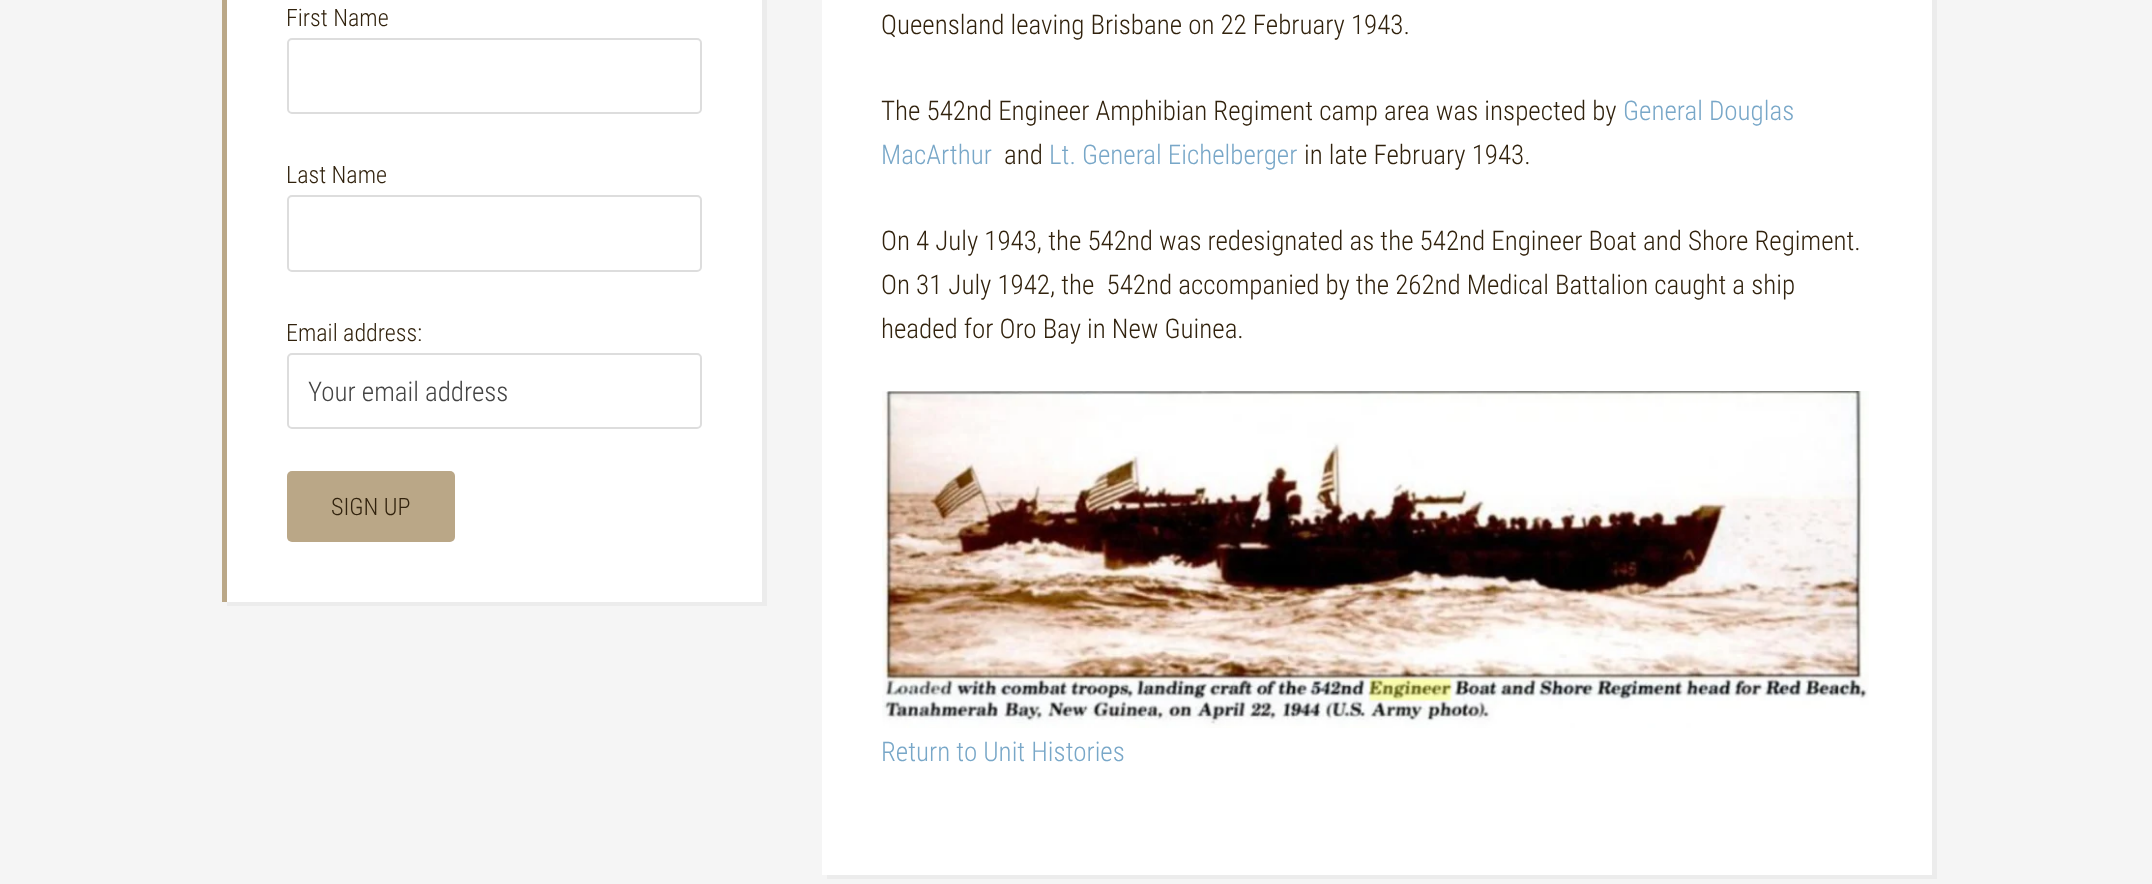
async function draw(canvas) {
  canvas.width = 2152;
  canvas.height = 884;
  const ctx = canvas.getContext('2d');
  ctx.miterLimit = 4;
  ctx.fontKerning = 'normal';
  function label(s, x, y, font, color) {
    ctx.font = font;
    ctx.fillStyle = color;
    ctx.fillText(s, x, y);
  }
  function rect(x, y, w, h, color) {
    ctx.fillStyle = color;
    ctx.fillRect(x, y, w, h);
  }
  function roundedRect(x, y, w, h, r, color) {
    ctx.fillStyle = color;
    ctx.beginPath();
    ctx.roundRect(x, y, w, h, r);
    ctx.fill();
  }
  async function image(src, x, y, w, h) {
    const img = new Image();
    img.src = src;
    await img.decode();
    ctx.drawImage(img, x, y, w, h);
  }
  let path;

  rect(0, 0, 2152, 884, '#f5f5f5');
  ctx.fillStyle = '#ececec';
  path = new Path2D('M227 602V606H767V-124H762V602Z');
  ctx.fill(path);
  rect(227, 0, 535, 602, '#fff');
  rect(222, 0, 5, 602, '#baa787');
  label('First Name', 286, 26, '300 24px Roboto Condensed', '#31220d');
  ctx.beginPath();
  ctx.roundRect(288, 39, 413, 74, 4);
  ctx.strokeStyle = '#ddd';
  ctx.lineWidth = 2;
  ctx.stroke();
  label('Last Name', 286, 183, '300 24px Roboto Condensed', '#31220d');
  ctx.beginPath();
  ctx.roundRect(288, 196, 413, 75, 4);
  ctx.stroke();
  label('Email address:', 286, 341, '300 24px Roboto Condensed', '#31220d');
  ctx.beginPath();
  ctx.roundRect(288, 354, 413, 74, 4);
  ctx.stroke();
  label('Your email address', 308, 401, '300 27px Roboto Condensed', '#444');
  roundedRect(287, 471, 168, 71, 5, '#baa787');
  label('SIGN UP', 331, 515, '300 24px Roboto Condensed', '#31220d');
  ctx.fillStyle = '#ececec';
  path = new Path2D('M827 874V879H1937V-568H1932V874Z');
  ctx.fill(path);
  rect(822, 0, 1110, 875, '#fff');
  label('Queensland leaving Brisbane on 22 February 1943.', 881, 34, '300 27px Roboto Condensed', '#31220d');
  label('The 542nd Engineer Amphibian Regiment camp area was inspected by', 881, 120, '300 27px Roboto Condensed', '#31220d');
  label('General Douglas', 1623, 120, '300 27px Roboto Condensed', '#78a7c8');
  label('MacArthur', 881, 164, '300 27px Roboto Condensed', '#78a7c8');
  label('and', 1004, 164, '300 27px Roboto Condensed', '#31220d');
  label('Lt. General Eichelberger', 1049, 164, '300 27px Roboto Condensed', '#78a7c8');
  label('in late February 1943.', 1304, 164, '300 27px Roboto Condensed', '#31220d');
  label('On 4 July 1943, the 542nd was redesignated as the 542nd Engineer Boat and Shore Regiment.', 881, 250, '300 27px Roboto Condensed', '#31220d');
  label('On 31 July 1942, the  542nd accompanied by the 262nd Medical Battalion caught a ship', 881, 294, '300 27px Roboto Condensed', '#31220d');
  label('headed for Oro Bay in New Guinea.', 881, 338, '300 27px Roboto Condensed', '#31220d');
  await image('assets/img1.png', 882, 391, 987, 337);
  label('Return to Unit Histories', 881, 761, '300 27px Roboto Condensed', '#78a7c8');
}

draw(document.querySelector('canvas'));
